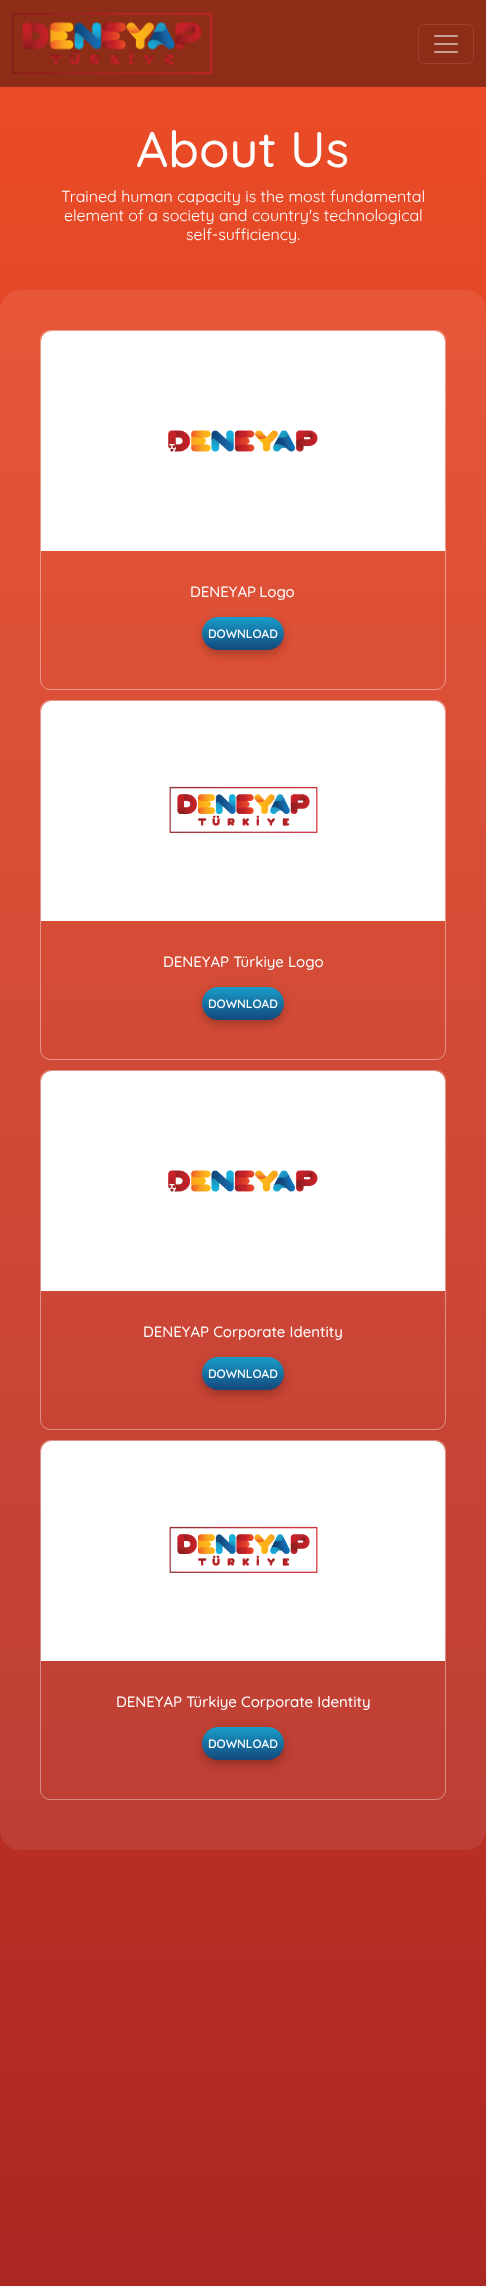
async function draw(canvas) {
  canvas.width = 486;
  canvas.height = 2286;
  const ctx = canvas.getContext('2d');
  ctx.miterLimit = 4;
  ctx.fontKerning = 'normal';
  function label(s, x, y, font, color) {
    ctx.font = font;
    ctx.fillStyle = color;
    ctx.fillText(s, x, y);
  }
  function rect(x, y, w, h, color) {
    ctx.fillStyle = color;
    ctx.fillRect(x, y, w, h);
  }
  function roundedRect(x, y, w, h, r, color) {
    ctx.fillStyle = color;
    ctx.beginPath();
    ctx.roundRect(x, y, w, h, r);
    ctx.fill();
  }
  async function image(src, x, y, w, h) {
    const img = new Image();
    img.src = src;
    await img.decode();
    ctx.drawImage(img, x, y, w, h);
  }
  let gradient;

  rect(0, 0, 486, 2286, '#fff');
  gradient = ctx.createLinearGradient(243, 0, 243, 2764);
  gradient.addColorStop(0, '#8e2e17');
  gradient.addColorStop(1, '#5e1314');
  ctx.fillStyle = gradient;
  ctx.fillRect(0, 0, 486, 87);
  await image('assets/img1.png', 12, 13, 200, 61);
  ctx.beginPath();
  ctx.roundRect(418.5, 24.5, 55, 39, 5.5);
  ctx.strokeStyle = '#99432f';
  ctx.stroke();
  await image('assets/img2.png', 434, 35, 24, 18);
  gradient = ctx.createLinearGradient(243, 0, 243, 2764);
  gradient.addColorStop(0, '#ed4d27');
  gradient.addColorStop(1, '#9d1f22');
  ctx.fillStyle = gradient;
  ctx.fillRect(0, 87, 486, 2199);
  label('About Us', 136, 167, '500 50px Quicksand', '#fff');
  label('Trained human capacity is the most fundamental', 61, 202, '16px Quicksand', '#fff');
  label('element of a society and country\'s technological', 64, 221, '16px Quicksand', '#fff');
  label('self-sufficiency.', 186, 240, '16px Quicksand', '#fff');
  roundedRect(0, 290, 486, 1560, 20, '#ffffff14');
  ctx.beginPath();
  ctx.roundRect(40.5, 330.5, 405, 359, 9.5);
  ctx.strokeStyle = '#ffffff66';
  ctx.stroke();
  ctx.fillStyle = '#fff';
  ctx.beginPath();
  ctx.roundRect(41, 331, 404, 220, [10, 10, 0, 0]);
  ctx.fill();
  await image('assets/img3.png', 168, 430, 150, 22);
  ctx.wordSpacing = '-1px';
  label('DENEYAP Logo', 190, 597, '500 15px Quicksand', '#fff');
  ctx.fillStyle = '#00000040';
  ctx.filter = 'blur(5px)';
  ctx.beginPath();
  ctx.roundRect(202, 621, 82, 33, 16.5);
  ctx.fill();
  ctx.filter = 'none';
  gradient = ctx.createLinearGradient(243, 617, 243, 650);
  gradient.addColorStop(0, '#199dca');
  gradient.addColorStop(1, '#13487c');
  ctx.fillStyle = gradient;
  ctx.beginPath();
  ctx.roundRect(202, 617, 82, 33, 16.5);
  ctx.fill();
  ctx.wordSpacing = '0px';
  label('DOWNLOAD', 208, 638, '600 12px Quicksand', '#fff');
  ctx.beginPath();
  ctx.roundRect(40.5, 700.5, 405, 359, 9.5);
  ctx.stroke();
  ctx.beginPath();
  ctx.roundRect(41, 701, 404, 220, [10, 10, 0, 0]);
  ctx.fill();
  await image('assets/img4.png', 169, 786, 149, 47);
  label('DENEYAP Türkiye Logo', 163, 967, '500 15px Quicksand', '#fff');
  ctx.fillStyle = '#00000040';
  ctx.filter = 'blur(5px)';
  ctx.beginPath();
  ctx.roundRect(202, 991, 82, 33, 16.5);
  ctx.fill();
  ctx.filter = 'none';
  gradient = ctx.createLinearGradient(243, 987, 243, 1020);
  gradient.addColorStop(0, '#199dca');
  gradient.addColorStop(1, '#13487c');
  ctx.fillStyle = gradient;
  ctx.beginPath();
  ctx.roundRect(202, 987, 82, 33, 16.5);
  ctx.fill();
  label('DOWNLOAD', 208, 1008, '600 12px Quicksand', '#fff');
  ctx.beginPath();
  ctx.roundRect(40.5, 1070.5, 405, 359, 9.5);
  ctx.stroke();
  ctx.beginPath();
  ctx.roundRect(41, 1071, 404, 220, [10, 10, 0, 0]);
  ctx.fill();
  await image('assets/img3.png', 168, 1170, 150, 22);
  label('DENEYAP Corporate Identity', 143, 1337, '500 15px Quicksand', '#fff');
  ctx.fillStyle = '#00000040';
  ctx.filter = 'blur(5px)';
  ctx.beginPath();
  ctx.roundRect(202, 1361, 82, 33, 16.5);
  ctx.fill();
  ctx.filter = 'none';
  gradient = ctx.createLinearGradient(243, 1357, 243, 1390);
  gradient.addColorStop(0, '#199dca');
  gradient.addColorStop(1, '#13487c');
  ctx.fillStyle = gradient;
  ctx.beginPath();
  ctx.roundRect(202, 1357, 82, 33, 16.5);
  ctx.fill();
  label('DOWNLOAD', 208, 1378, '600 12px Quicksand', '#fff');
  ctx.beginPath();
  ctx.roundRect(40.5, 1440.5, 405, 359, 9.5);
  ctx.stroke();
  ctx.beginPath();
  ctx.roundRect(41, 1441, 404, 220, [10, 10, 0, 0]);
  ctx.fill();
  await image('assets/img4.png', 169, 1526, 149, 47);
  label('DENEYAP Türkiye Corporate Identity', 116, 1707, '500 15px Quicksand', '#fff');
  ctx.fillStyle = '#00000040';
  ctx.filter = 'blur(5px)';
  ctx.beginPath();
  ctx.roundRect(202, 1731, 82, 33, 16.5);
  ctx.fill();
  ctx.filter = 'none';
  gradient = ctx.createLinearGradient(243, 1727, 243, 1760);
  gradient.addColorStop(0, '#199dca');
  gradient.addColorStop(1, '#13487c');
  ctx.fillStyle = gradient;
  ctx.beginPath();
  ctx.roundRect(202, 1727, 82, 33, 16.5);
  ctx.fill();
  label('DOWNLOAD', 208, 1748, '600 12px Quicksand', '#fff');
}

draw(document.querySelector('canvas'));
